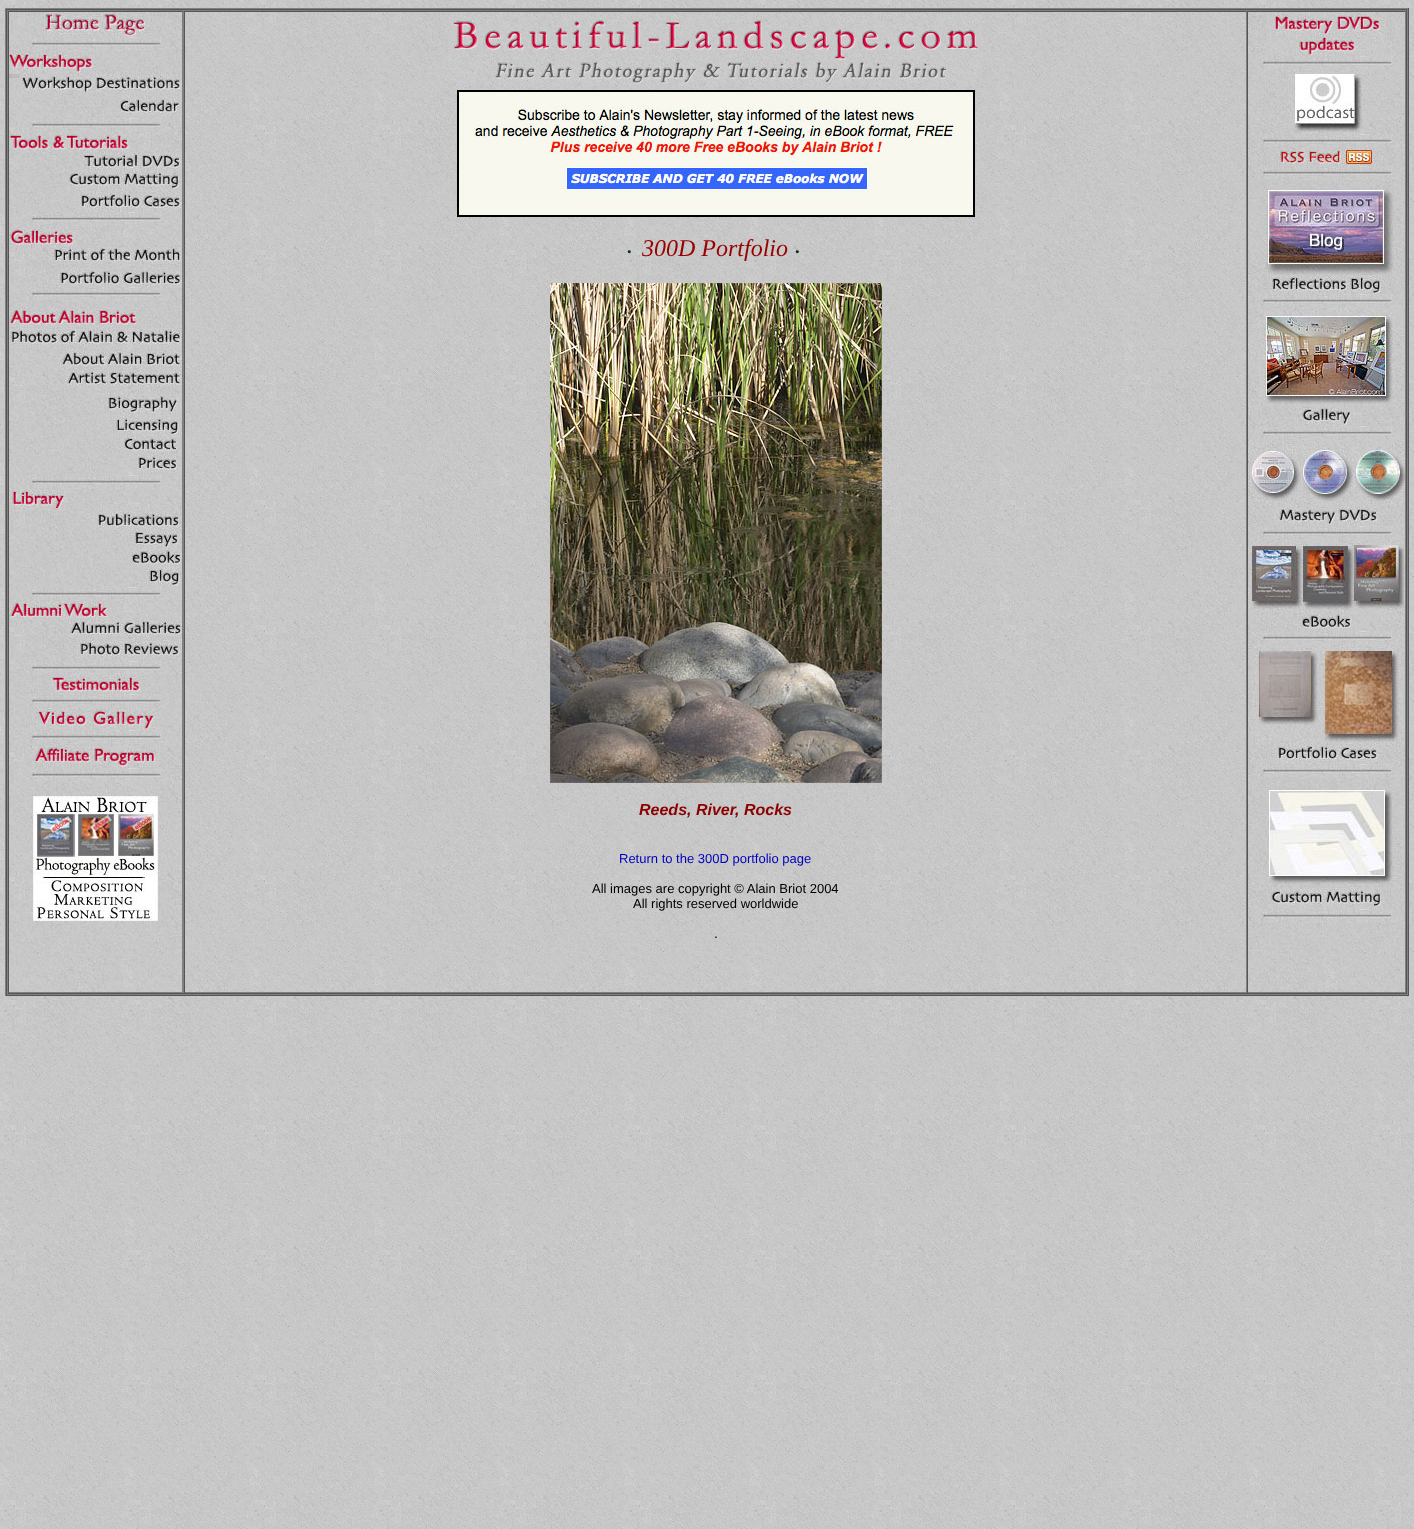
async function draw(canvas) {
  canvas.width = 1414;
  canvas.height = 1529;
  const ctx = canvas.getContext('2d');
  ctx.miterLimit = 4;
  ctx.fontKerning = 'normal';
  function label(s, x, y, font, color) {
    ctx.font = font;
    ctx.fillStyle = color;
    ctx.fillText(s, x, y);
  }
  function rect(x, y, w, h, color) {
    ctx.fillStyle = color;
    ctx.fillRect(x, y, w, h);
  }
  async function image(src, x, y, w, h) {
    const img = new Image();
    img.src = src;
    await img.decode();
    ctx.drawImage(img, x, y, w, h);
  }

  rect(0, 0, 1414, 1529, '#fff');
  await image('assets/img1.png', 0, 0, 1414, 1529);
  rect(5, 8, 1404, 1, '#808080');
  rect(1408, 8, 1, 988, '#555');
  rect(5, 995, 1404, 1, '#555');
  rect(5, 8, 1, 988, '#808080');
  rect(6, 9, 1402, 1, '#555');
  rect(1407, 9, 1, 986, '#808080');
  rect(6, 994, 1402, 1, '#808080');
  rect(6, 9, 1, 986, '#555');
  rect(7, 10, 1400, 1, '#808080');
  rect(1406, 10, 1, 984, '#555');
  rect(7, 993, 1400, 1, '#555');
  rect(7, 10, 1, 984, '#808080');
  rect(8, 11, 1398, 1, '#555');
  rect(183, 11, 1, 982, '#808080');
  rect(8, 992, 176, 1, '#808080');
  rect(8, 11, 1, 982, '#555');
  await image('assets/img2.png', 9, 12, 174, 980);
  rect(1246, 11, 1, 982, '#808080');
  rect(184, 992, 1063, 1, '#808080');
  rect(184, 11, 1, 982, '#555');
  await image('assets/img3.png', 449, 14, 533, 72);
  await image('assets/img4.png', 457, 90, 518, 127);
  label('•', 627, 256, '13px Liberation Serif', '#030');
  label('300D Portfolio', 642, 256, 'italic 24px Liberation Serif', '#900');
  label('•', 795, 256, '13px Liberation Serif', '#030');
  await image('assets/img5.png', 550, 283, 332, 500);
  label('Reeds, River, Rocks', 639, 815, 'italic bold 16px Liberation Sans', '#8b0000');
  label('Return to the 300D portfolio page', 619, 863, '13px Liberation Sans', '#00b');
  label('All images are copyright © Alain Briot 2004', 592, 893, '13px Liberation Sans', '#000');
  label('All rights reserved worldwide', 633, 908, '13px Liberation Sans', '#000');
  label('.', 714, 938, '14px Liberation Sans', '#000');
  rect(1405, 11, 1, 982, '#808080');
  rect(1247, 992, 159, 1, '#808080');
  rect(1247, 11, 1, 982, '#555');
  await image('assets/img6.png', 1248, 12, 157, 978);
}

draw(document.querySelector('canvas'));
